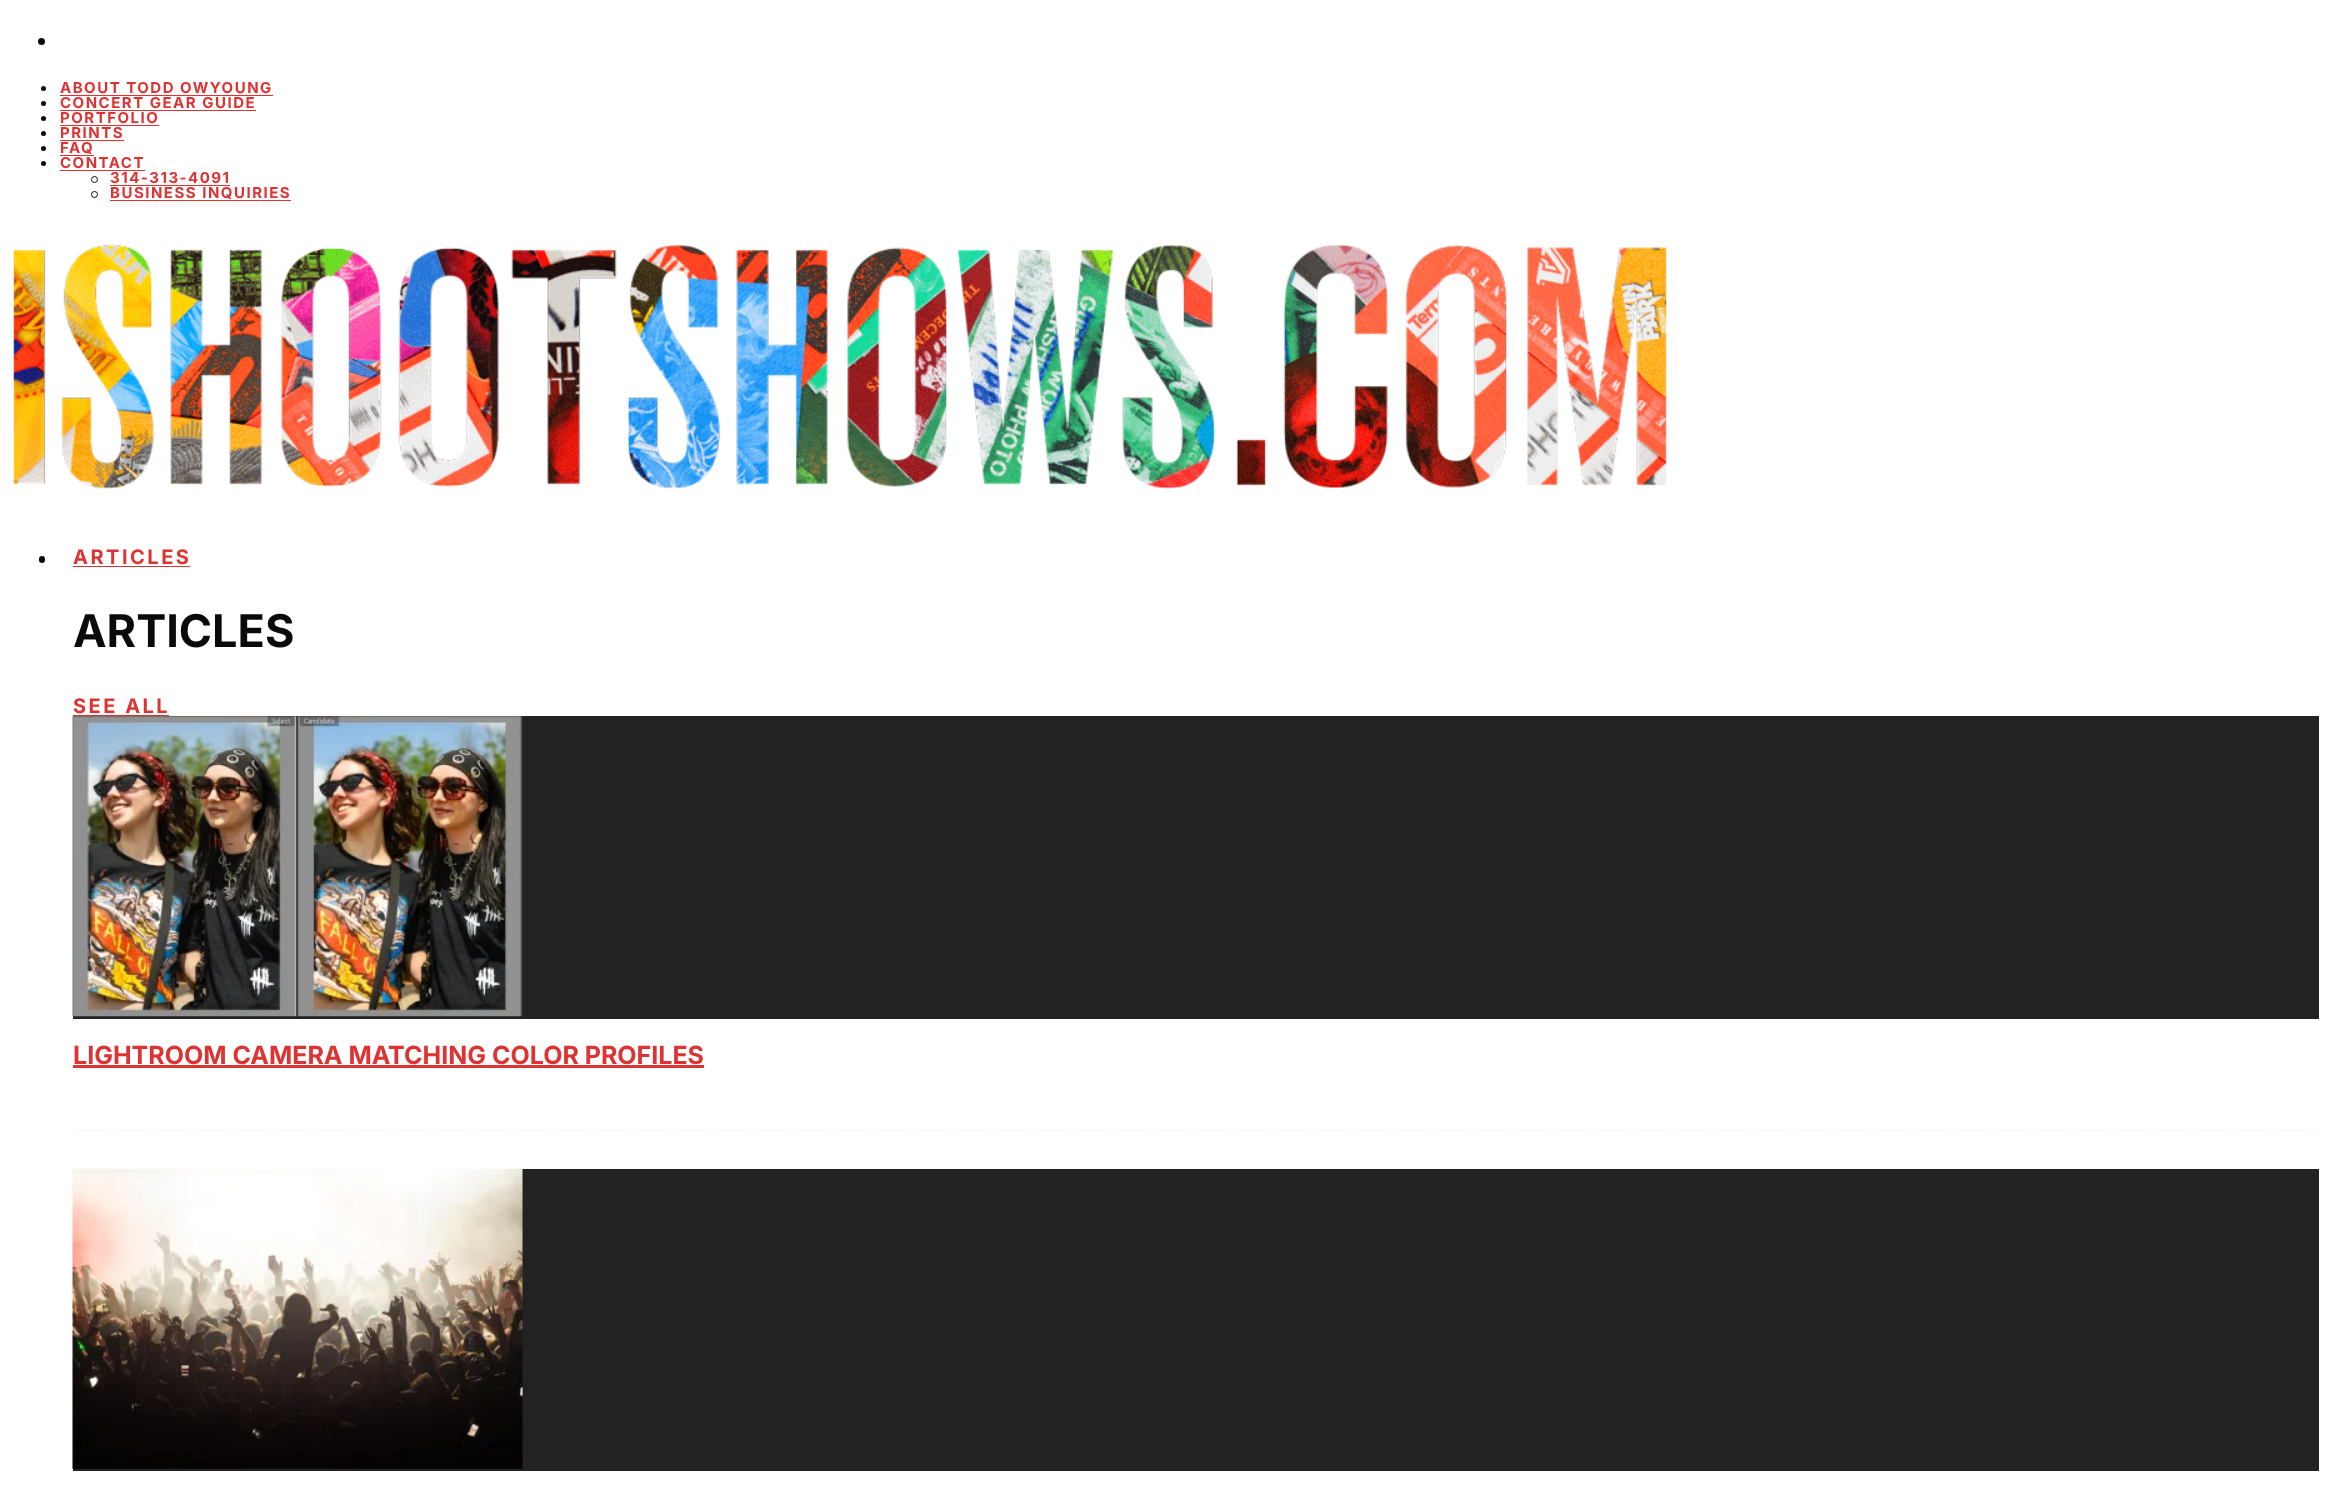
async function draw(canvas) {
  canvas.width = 2342;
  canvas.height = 1489;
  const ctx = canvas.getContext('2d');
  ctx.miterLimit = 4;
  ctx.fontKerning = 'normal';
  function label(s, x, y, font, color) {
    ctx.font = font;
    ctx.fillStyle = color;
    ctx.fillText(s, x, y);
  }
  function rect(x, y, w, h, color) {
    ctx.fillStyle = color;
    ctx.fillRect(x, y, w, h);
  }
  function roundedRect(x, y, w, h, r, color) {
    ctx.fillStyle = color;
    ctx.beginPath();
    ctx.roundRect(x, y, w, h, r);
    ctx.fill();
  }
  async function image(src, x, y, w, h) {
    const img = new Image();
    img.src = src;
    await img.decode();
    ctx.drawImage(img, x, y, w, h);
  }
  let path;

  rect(0, 0, 2342, 1489, '#fff');
  ctx.fillStyle = '#0a0a0a';
  ctx.beginPath();
  ctx.arc(41.5, 41.5, 3.5, 0, 2 * Math.PI);
  ctx.fill();
  ctx.beginPath();
  ctx.arc(43.5, 88.5, 2.5, 0, 2 * Math.PI);
  ctx.fill();
  ctx.letterSpacing = '1.5px';
  label('ABOUT TODD OWYOUNG', 60, 93, 'bold 15px Inter', '#d33');
  rect(60, 95, 213, 1, '#d33');
  ctx.fillStyle = '#0a0a0a';
  ctx.beginPath();
  ctx.arc(43.5, 103.5, 2.5, 0, 2 * Math.PI);
  ctx.fill();
  label('CONCERT GEAR GUIDE', 60, 108, 'bold 15px Inter', '#d33');
  rect(60, 110, 196, 1, '#d33');
  ctx.fillStyle = '#0a0a0a';
  ctx.beginPath();
  ctx.arc(43.5, 118.5, 2.5, 0, 2 * Math.PI);
  ctx.fill();
  label('PORTFOLIO', 60, 123, 'bold 15px Inter', '#d33');
  rect(60, 125, 99, 1, '#d33');
  ctx.fillStyle = '#0a0a0a';
  ctx.beginPath();
  ctx.arc(43.5, 133.5, 2.5, 0, 2 * Math.PI);
  ctx.fill();
  label('PRINTS', 60, 138, 'bold 15px Inter', '#d33');
  rect(60, 140, 64, 1, '#d33');
  ctx.fillStyle = '#0a0a0a';
  ctx.beginPath();
  ctx.arc(43.5, 148.5, 2.5, 0, 2 * Math.PI);
  ctx.fill();
  label('FAQ', 60, 153, 'bold 15px Inter', '#d33');
  rect(60, 155, 34, 1, '#d33');
  ctx.fillStyle = '#0a0a0a';
  ctx.beginPath();
  ctx.arc(43.5, 163.5, 2.5, 0, 2 * Math.PI);
  ctx.fill();
  label('CONTACT', 60, 168, 'bold 15px Inter', '#d33');
  rect(60, 170, 85, 1, '#d33');
  ctx.beginPath();
  ctx.arc(94.5, 179.5, 3, 0, 2 * Math.PI);
  ctx.strokeStyle = '#0a0a0a';
  ctx.stroke();
  label('314-313-4091', 110, 183, 'bold 15px Inter', '#d33');
  rect(110, 185, 120, 1, '#d33');
  ctx.beginPath();
  ctx.arc(94.5, 194.5, 3, 0, 2 * Math.PI);
  ctx.stroke();
  label('BUSINESS INQUIRIES', 110, 198, 'bold 15px Inter', '#d33');
  rect(110, 200, 181, 1, '#d33');
  await image('assets/img1.png', 12, 244, 1655, 245);
  roundedRect(39, 556, 6, 7, 3, '#0a0a0a');
  ctx.letterSpacing = '2.5px';
  label('ARTICLES', 73, 564, 'bold 20px Inter', '#d33');
  rect(73, 566, 117, 1, '#d33');
  ctx.letterSpacing = '0px';
  label('ARTICLES', 73, 647, 'bold 45px Inter', '#0a0a0a');
  ctx.letterSpacing = '2.5px';
  label('SEE ALL', 73, 713, 'bold 20px Inter', '#d33');
  rect(73, 715, 96, 1, '#d33');
  path = new Path2D('M72.5 1130.5H2319');
  ctx.strokeStyle = '#f2f2f2';
  ctx.lineWidth = 1.2;
  ctx.setLineDash([1.25, 1.25]);
  ctx.stroke(path);
  rect(73, 716, 2246, 303, '#222');
  await image('assets/img2.png', 72, 716, 451, 301);
  ctx.letterSpacing = '0px';
  label('LIGHTROOM CAMERA MATCHING COLOR PROFILES', 73, 1064, 'bold 25px Inter', '#d33');
  rect(73, 1065, 631, 3, '#d33');
  rect(73, 1169, 2246, 302, '#222');
  await image('assets/img3.png', 72, 1168, 451, 301);
}

draw(document.querySelector('canvas'));
